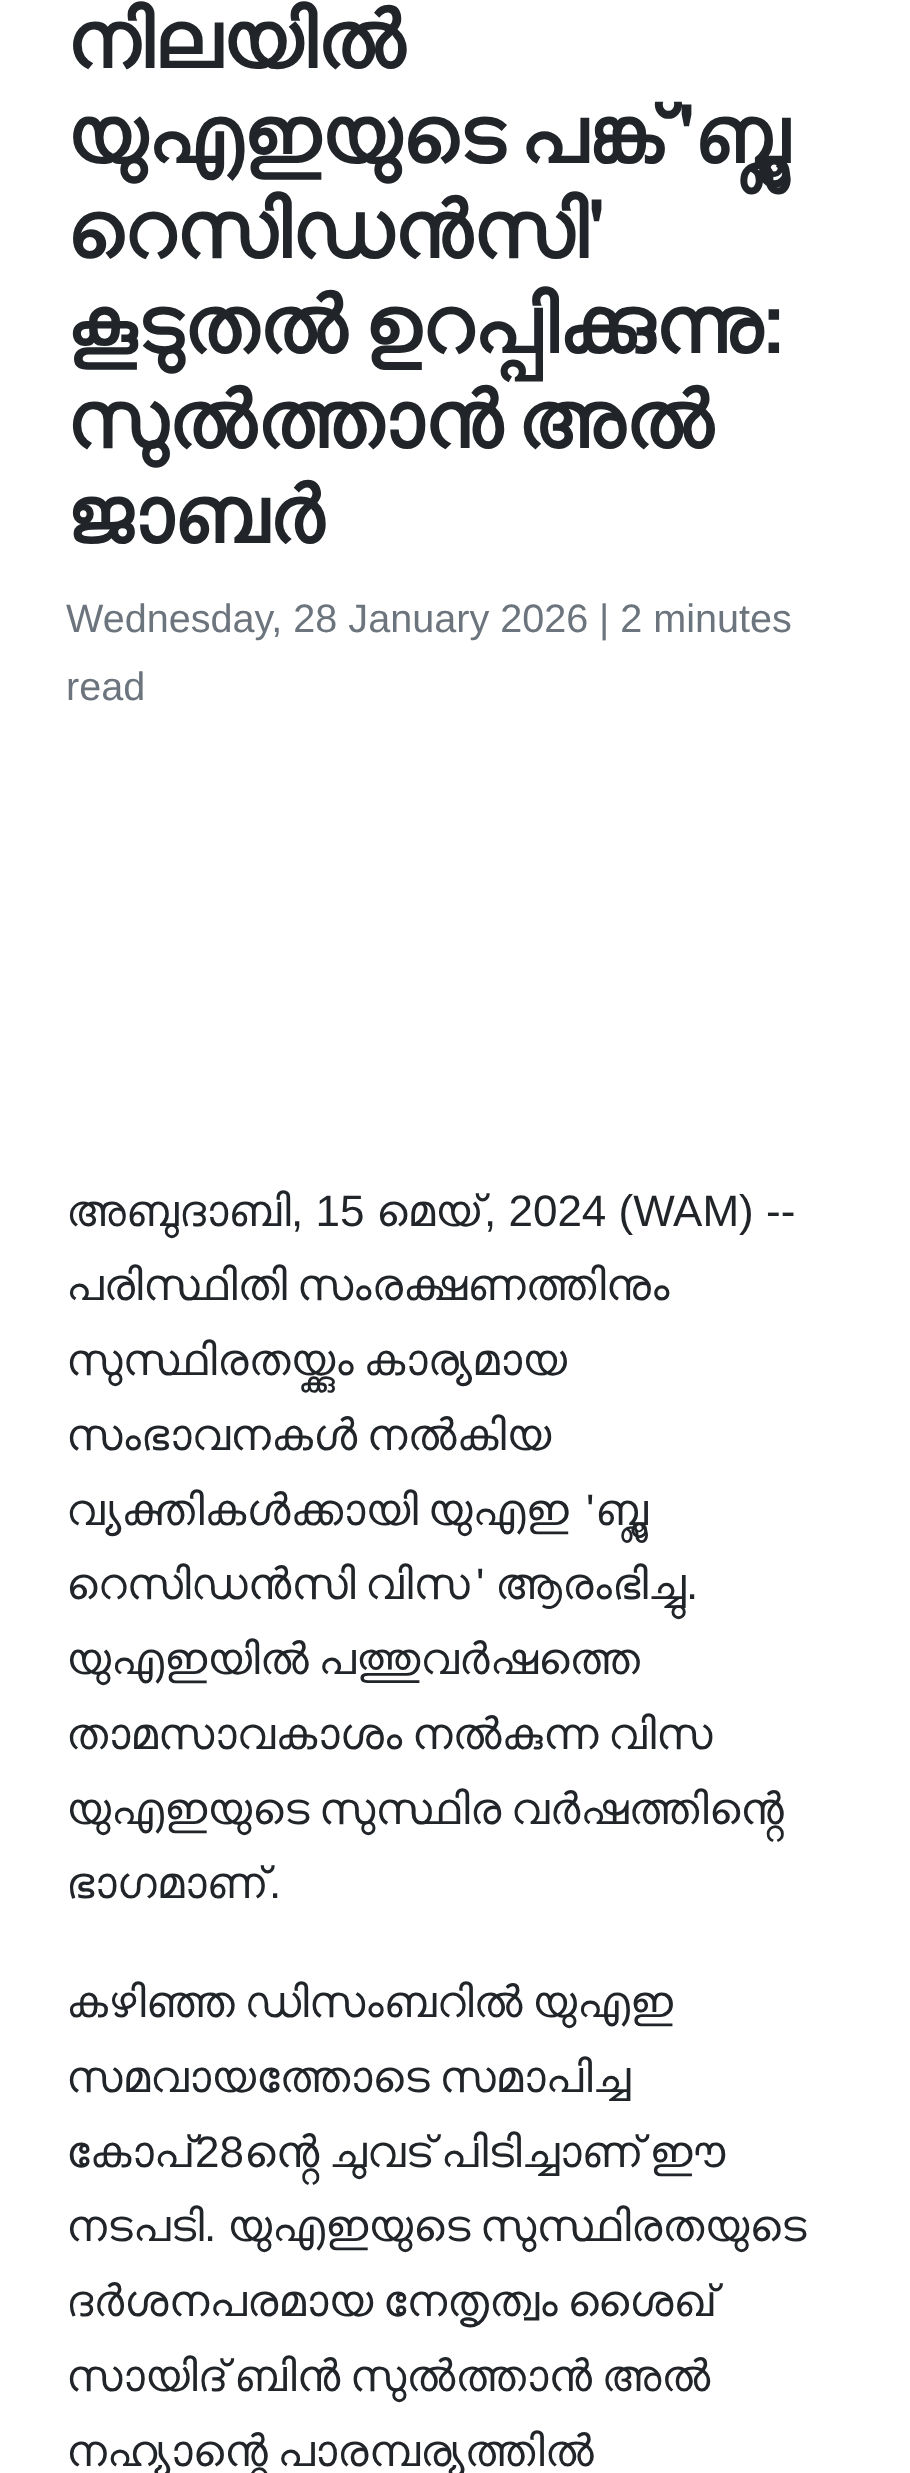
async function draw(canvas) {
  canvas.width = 910;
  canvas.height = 2473;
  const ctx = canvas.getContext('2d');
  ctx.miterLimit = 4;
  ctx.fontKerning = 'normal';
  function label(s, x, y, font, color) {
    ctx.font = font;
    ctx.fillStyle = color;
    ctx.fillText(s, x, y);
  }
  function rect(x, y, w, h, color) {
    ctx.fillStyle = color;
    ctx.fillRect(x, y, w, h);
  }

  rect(0, 0, 910, 2473, '#fff');
  label('നിലയിൽ', 66, 68, 'bold 79.25px FreeSans', '#212529');
  ctx.wordSpacing = '-5px';
  label('യുഎഇയുടെ പങ്ക് \'ബ്ലൂ', 66, 163, 'bold 79.25px FreeSans', '#212529');
  ctx.wordSpacing = '0px';
  label('റെസിഡൻസി\'', 66, 258, 'bold 79.25px FreeSans', '#212529');
  ctx.wordSpacing = '-3px';
  label('കൂടുതൽ ഉറപ്പിക്കുന്നു:', 66, 353, 'bold 79.25px FreeSans', '#212529');
  ctx.wordSpacing = '-5px';
  label('സുൽത്താൻ അൽ', 66, 448, 'bold 79.25px FreeSans', '#212529');
  ctx.wordSpacing = '0px';
  label('ജാബർ', 66, 543, 'bold 79.25px FreeSans', '#212529');
  label('Wednesday, 28 January 2026', 66, 632, '39.6px Liberation Sans', '#6c757d');
  label('| 2 minutes', 599, 632, '39.6px Liberation Sans', '#6c757d');
  label('read', 66, 700, '39.6px Liberation Sans', '#6c757d');
  label('അബുദാബി', 66, 1226, '44px FreeSans', '#212529');
  label(', 15', 291, 1226, '44px Liberation Sans', '#212529');
  label('മെയ്', 376, 1226, '44px FreeSans', '#212529');
  label(', 2024 (WAM) --', 484, 1226, '44px Liberation Sans', '#212529');
  ctx.wordSpacing = '-1.5px';
  label('പരിസ്ഥിതി സംരക്ഷണത്തിനും', 66, 1300, '44px FreeSans', '#212529');
  label('സുസ്ഥിരതയ്ക്കും കാര്യമായ', 66, 1375, '44px FreeSans', '#212529');
  label('സംഭാവനകൾ നൽകിയ', 66, 1450, '44px FreeSans', '#212529');
  label('വ്യക്തികൾക്കായി യുഎഇ', 66, 1525, '44px FreeSans', '#212529');
  ctx.wordSpacing = '0px';
  label('\'', 586, 1525, '44px Liberation Sans', '#212529');
  label('ബ്ലൂ', 595, 1525, '44px FreeSans', '#212529');
  ctx.wordSpacing = '-1.5px';
  label('റെസിഡൻസി വിസ', 66, 1599, '44px FreeSans', '#212529');
  ctx.wordSpacing = '0px';
  label('\'', 476, 1599, '44px Liberation Sans', '#212529');
  label('ആരംഭിച്ചു', 495, 1599, '44px FreeSans', '#212529');
  label('.', 686, 1599, '44px Liberation Sans', '#212529');
  ctx.wordSpacing = '-1.5px';
  label('യുഎഇയിൽ പത്തുവർഷത്തെ', 66, 1674, '44px FreeSans', '#212529');
  label('താമസാവകാശം നൽകുന്ന വിസ', 66, 1749, '44px FreeSans', '#212529');
  label('യുഎഇയുടെ സുസ്ഥിര വർഷത്തിൻ്റെ', 66, 1824, '44px FreeSans', '#212529');
  ctx.wordSpacing = '0px';
  label('ഭാഗമാണ്', 66, 1898, '44px FreeSans', '#212529');
  label('.', 269, 1898, '44px Liberation Sans', '#212529');
  ctx.wordSpacing = '-1.5px';
  label('കഴിഞ്ഞ ഡിസംബറിൽ യുഎഇ', 66, 2017, '44px FreeSans', '#212529');
  label('സമവായത്തോടെ സമാപിച്ച', 66, 2092, '44px FreeSans', '#212529');
  ctx.wordSpacing = '0px';
  label('കോപ്', 66, 2167, '44px FreeSans', '#212529');
  label('28', 195, 2167, '44px Liberation Sans', '#212529');
  ctx.wordSpacing = '-1.5px';
  label('ൻ്റെ ചുവട് പിടിച്ചാണ് ഈ', 244, 2167, '44px FreeSans', '#212529');
  ctx.wordSpacing = '0px';
  label('നടപടി', 66, 2241, '44px FreeSans', '#212529');
  label('.', 204, 2241, '44px Liberation Sans', '#212529');
  ctx.wordSpacing = '-1.5px';
  label('യുഎഇയുടെ സുസ്ഥിരതയുടെ', 227, 2241, '44px FreeSans', '#212529');
  label('ദർശനപരമായ നേതൃത്വം ശൈഖ്', 66, 2316, '44px FreeSans', '#212529');
  label('സായിദ് ബിൻ സുൽത്താൻ അൽ', 66, 2391, '44px FreeSans', '#212529');
  label('നഹ്യാൻ്റെ പാരമ്പര്യത്തിൽ', 66, 2466, '44px FreeSans', '#212529');
}

draw(document.querySelector('canvas'));
